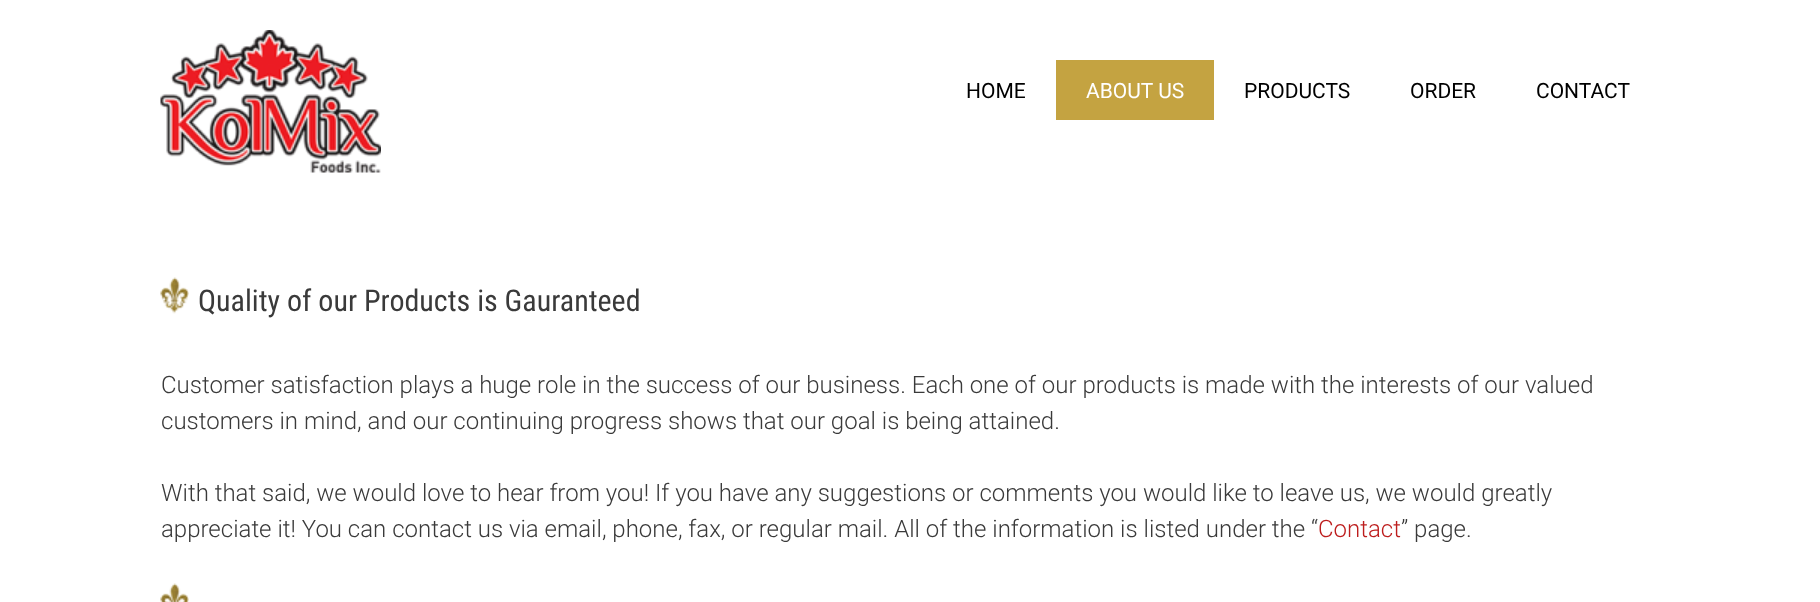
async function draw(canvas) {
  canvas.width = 1820;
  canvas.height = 602;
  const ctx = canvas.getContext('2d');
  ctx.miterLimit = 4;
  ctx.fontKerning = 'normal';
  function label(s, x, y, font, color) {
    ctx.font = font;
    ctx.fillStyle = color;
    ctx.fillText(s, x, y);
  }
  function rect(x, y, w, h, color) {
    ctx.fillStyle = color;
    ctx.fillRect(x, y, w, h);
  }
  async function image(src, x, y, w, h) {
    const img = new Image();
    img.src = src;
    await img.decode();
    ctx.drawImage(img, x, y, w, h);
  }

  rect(0, 0, 1820, 602, '#fff');
  await image('assets/img1.png', 160, 30, 221, 143);
  label('HOME', 966, 98, '21px Roboto', '#000');
  rect(1056, 60, 158, 60, '#c4a341');
  label('ABOUT US', 1086, 98, '21px Roboto', '#fff');
  label('PRODUCTS', 1244, 98, '21px Roboto', '#000');
  label('ORDER', 1410, 98, '21px Roboto', '#000');
  label('CONTACT', 1536, 98, '21px Roboto', '#000');
  await image('assets/img2.png', 160, 277, 29, 37);
  label('Quality of our Products is Gauranteed', 198, 311, '30px Roboto Condensed', '#3a3a3a');
  label('Customer satisfaction plays a huge role in the success of our business. Each one of our products is made with the interests of our valued', 161, 393, '300 24px Roboto', '#3a3a3a');
  label('customers in mind, and our continuing progress shows that our goal is being attained.', 161, 429, '300 24px Roboto', '#3a3a3a');
  label('With that said, we would love to hear from you! If you have any suggestions or comments you would like to leave us, we would greatly', 161, 501, '300 24px Roboto', '#3a3a3a');
  label('appreciate it! You can contact us via email, phone, fax, or regular mail. All of the information is listed under the “', 161, 537, '300 24px Roboto', '#3a3a3a');
  label('Contact', 1318, 537, '300 24px Roboto', '#bd1d1d');
  label('” page.', 1401, 537, '300 24px Roboto', '#3a3a3a');
  await image('assets/img3.png', 160, 583, 29, 19);
}

draw(document.querySelector('canvas'));
